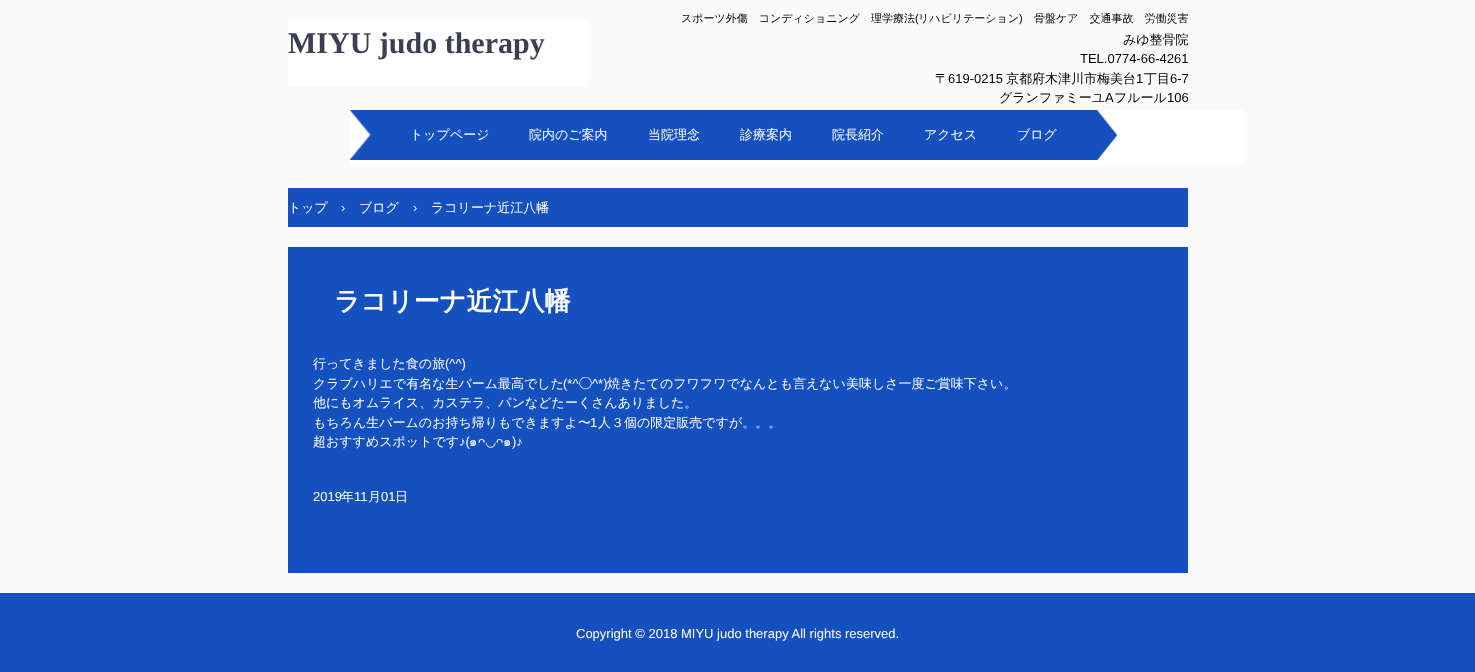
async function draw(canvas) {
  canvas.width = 1475;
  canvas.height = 672;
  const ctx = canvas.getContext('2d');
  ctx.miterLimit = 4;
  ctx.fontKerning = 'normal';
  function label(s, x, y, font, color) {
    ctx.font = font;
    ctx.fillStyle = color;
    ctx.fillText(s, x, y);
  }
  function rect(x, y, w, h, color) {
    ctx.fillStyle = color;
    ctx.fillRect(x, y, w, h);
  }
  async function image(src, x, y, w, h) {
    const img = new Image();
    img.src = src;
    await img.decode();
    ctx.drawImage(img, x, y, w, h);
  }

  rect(0, 0, 1475, 672, '#fafafa');
  label('スポーツ外傷　コンディショニング　理学療法', 681, 22, '500 11px WenQuanYi Zen Hei', '#000');
  label('(', 915, 22, '11px Liberation Sans', '#000');
  label('リハビリテーション', 918, 22, '500 11px WenQuanYi Zen Hei', '#000');
  label(')', 1019, 22, '11px Liberation Sans', '#000');
  label('骨盤ケア　交通事故　労働災害', 1034, 22, '500 11px WenQuanYi Zen Hei', '#000');
  rect(288, 20, 300, 66, '#fff');
  label('MIYU judo therapy', 288, 53, 'bold 30px Liberation Serif', '#3c3f53');
  label('みゆ整骨院', 1123, 44, '500 13px WenQuanYi Zen Hei', '#000');
  label('TEL.0774-66-4261', 1080, 63, '13px Liberation Sans', '#000');
  label('〒', 935, 83, '500 13px WenQuanYi Zen Hei', '#000');
  label('619-0215', 948, 83, '13px Liberation Sans', '#000');
  label('京都府木津川市梅美台', 1006, 83, '500 13px WenQuanYi Zen Hei', '#000');
  label('1', 1136, 83, '13px Liberation Sans', '#000');
  label('丁目', 1144, 83, '500 13px WenQuanYi Zen Hei', '#000');
  label('6-7', 1170, 83, '13px Liberation Sans', '#000');
  label('グランファミーユ', 999, 102, '500 13px WenQuanYi Zen Hei', '#000');
  label('A', 1105, 102, '13px Liberation Sans', '#000');
  label('フルール', 1114, 102, '500 13px WenQuanYi Zen Hei', '#000');
  label('106', 1167, 102, '13px Liberation Sans', '#000');
  rect(350, 110, 894, 55, '#fff');
  await image('assets/img1.png', 350, 110, 40, 50);
  rect(390, 110, 687, 50, '#1550bf');
  label('トップページ', 410, 139, '500 13px WenQuanYi Zen Hei', '#fff');
  label('院内のご案内', 529, 139, '500 13px WenQuanYi Zen Hei', '#fff');
  label('当院理念', 648, 139, '500 13px WenQuanYi Zen Hei', '#fff');
  label('診療案内', 740, 139, '500 13px WenQuanYi Zen Hei', '#fff');
  label('院長紹介', 832, 139, '500 13px WenQuanYi Zen Hei', '#fff');
  label('アクセス', 924, 139, '500 13px WenQuanYi Zen Hei', '#fff');
  await image('assets/img2.png', 1077, 110, 40, 50);
  label('ブログ', 1017, 139, '500 13px WenQuanYi Zen Hei', '#fff');
  rect(288, 188, 900, 39, '#1550bf');
  label('トップ', 288, 212, '500 13px WenQuanYi Zen Hei', '#fff');
  label('›', 341, 212, '13px Liberation Sans', '#fff');
  label('ブログ', 359, 212, '500 13px WenQuanYi Zen Hei', '#fff');
  label('›', 413, 212, '13px Liberation Sans', '#fff');
  label('ラコリーナ近江八幡', 431, 212, '500 13px WenQuanYi Zen Hei', '#fff');
  rect(288, 247, 900, 326, '#1550bf');
  label('ラコリーナ近江八幡', 334, 310, 'bold 26px WenQuanYi Zen Hei', '#fff');
  label('行ってきました食の旅', 313, 368, '500 13px WenQuanYi Zen Hei', '#fff');
  label('(^^)', 445, 368, '13px Liberation Sans', '#fff');
  label('クラブハリエで有名な生バーム最高でした', 313, 388, '500 13px WenQuanYi Zen Hei', '#fff');
  label('(*^', 563, 388, '13px Liberation Sans', '#fff');
  label('◯', 579, 388, '13px IPAPGothic', '#fff');
  label('^*)', 592, 388, '13px Liberation Sans', '#fff');
  label('焼きたてのフワフワでなんとも言えない美味しさ一度ご賞味下さい。', 607, 388, '500 13px WenQuanYi Zen Hei', '#fff');
  label('他にもオムライス、カステラ、パンなどたーくさんありました。', 313, 407, '500 13px WenQuanYi Zen Hei', '#fff');
  label('もちろん生バームのお持ち帰りもできますよ〜', 313, 427, '500 13px WenQuanYi Zen Hei', '#fff');
  label('1', 590, 427, '13px Liberation Sans', '#fff');
  label('人３個の限定販売ですが。。。', 598, 427, '500 13px WenQuanYi Zen Hei', '#fff');
  label('超おすすめスポットです', 313, 446, '500 13px WenQuanYi Zen Hei', '#fff');
  label('♪(', 459, 446, '13px Liberation Sans', '#fff');
  label('๑', 469, 446, '13px Loma', '#fff');
  label('ᴖ', 478, 446, '13px Liberation Sans', '#fff');
  label('◡', 485, 446, '13px DejaVu Sans', '#fff');
  label('ᴖ', 496, 446, '13px Liberation Sans', '#fff');
  label('๑', 503, 446, '13px Loma', '#fff');
  label(')♪', 512, 446, '13px Liberation Sans', '#fff');
  label('2019', 313, 501, '13px Liberation Sans', '#fff');
  label('年', 341, 501, '500 13px WenQuanYi Zen Hei', '#fff');
  label('11', 354, 501, '13px Liberation Sans', '#fff');
  label('月', 368, 501, '500 13px WenQuanYi Zen Hei', '#fff');
  label('01', 381, 501, '13px Liberation Sans', '#fff');
  label('日', 395, 501, '500 13px WenQuanYi Zen Hei', '#fff');
  rect(0, 593, 1475, 79, '#1550bf');
  label('Copyright © 2018 MIYU judo therapy All rights reserved.', 576, 638, '13px Liberation Sans', '#fff');
}

draw(document.querySelector('canvas'));
